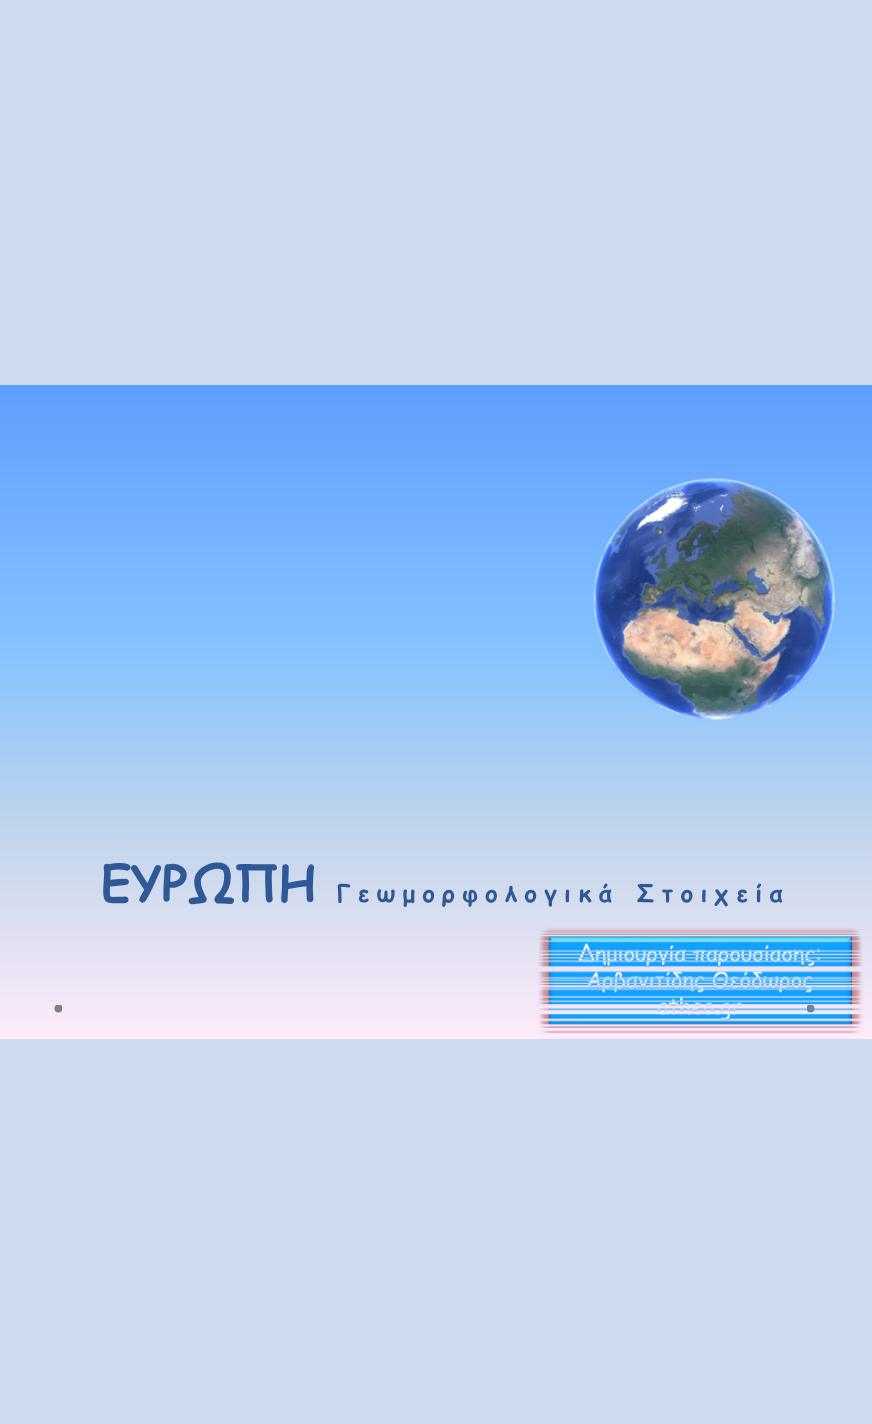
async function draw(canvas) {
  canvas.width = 872;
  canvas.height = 1424;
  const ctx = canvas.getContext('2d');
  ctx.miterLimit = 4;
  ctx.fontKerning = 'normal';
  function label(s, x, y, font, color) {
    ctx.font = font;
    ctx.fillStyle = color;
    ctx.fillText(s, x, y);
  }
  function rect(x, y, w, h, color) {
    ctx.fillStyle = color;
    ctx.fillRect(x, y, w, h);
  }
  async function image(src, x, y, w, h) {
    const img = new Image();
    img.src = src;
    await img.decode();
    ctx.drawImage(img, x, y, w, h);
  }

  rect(0, 0, 872, 1424, '#cfdcef');
  await image('assets/img1.png', 0, 385, 872, 654);
  ctx.save();
  ctx.beginPath();
  ctx.rect(54, 1005, 8, 8);
  ctx.clip();
  ctx.fillStyle = '#808080';
  ctx.beginPath();
  ctx.arc(58.5, 1008.5, 4, 0, 2 * Math.PI);
  ctx.fill();
  ctx.restore();
  ctx.save();
  ctx.beginPath();
  ctx.rect(807, 1005, 8, 8);
  ctx.clip();
  ctx.fillStyle = '#808080';
  ctx.beginPath();
  ctx.arc(810.5, 1008.5, 4, 0, 2 * Math.PI);
  ctx.fill();
  ctx.restore();
  await image('assets/img2.png', 593, 478, 243, 243);
  label('ΕΥΡΩΠΗ', 101, 901, 'bold 48.5px "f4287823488"', '#2f5897');
  ctx.letterSpacing = '7.25px';
  label('Γεωμορφολογικά Στοιχεία', 337, 902, 'bold 24.25px "f4287823488"', '#2f5897');
  await image('assets/img5.png', 577, 950, 244, 71);
  await image('assets/img3.png', 538, 927, 325, 107);
  await image('assets/img4.png', 578, 943, 242, 77);
}

draw(document.querySelector('canvas'));
